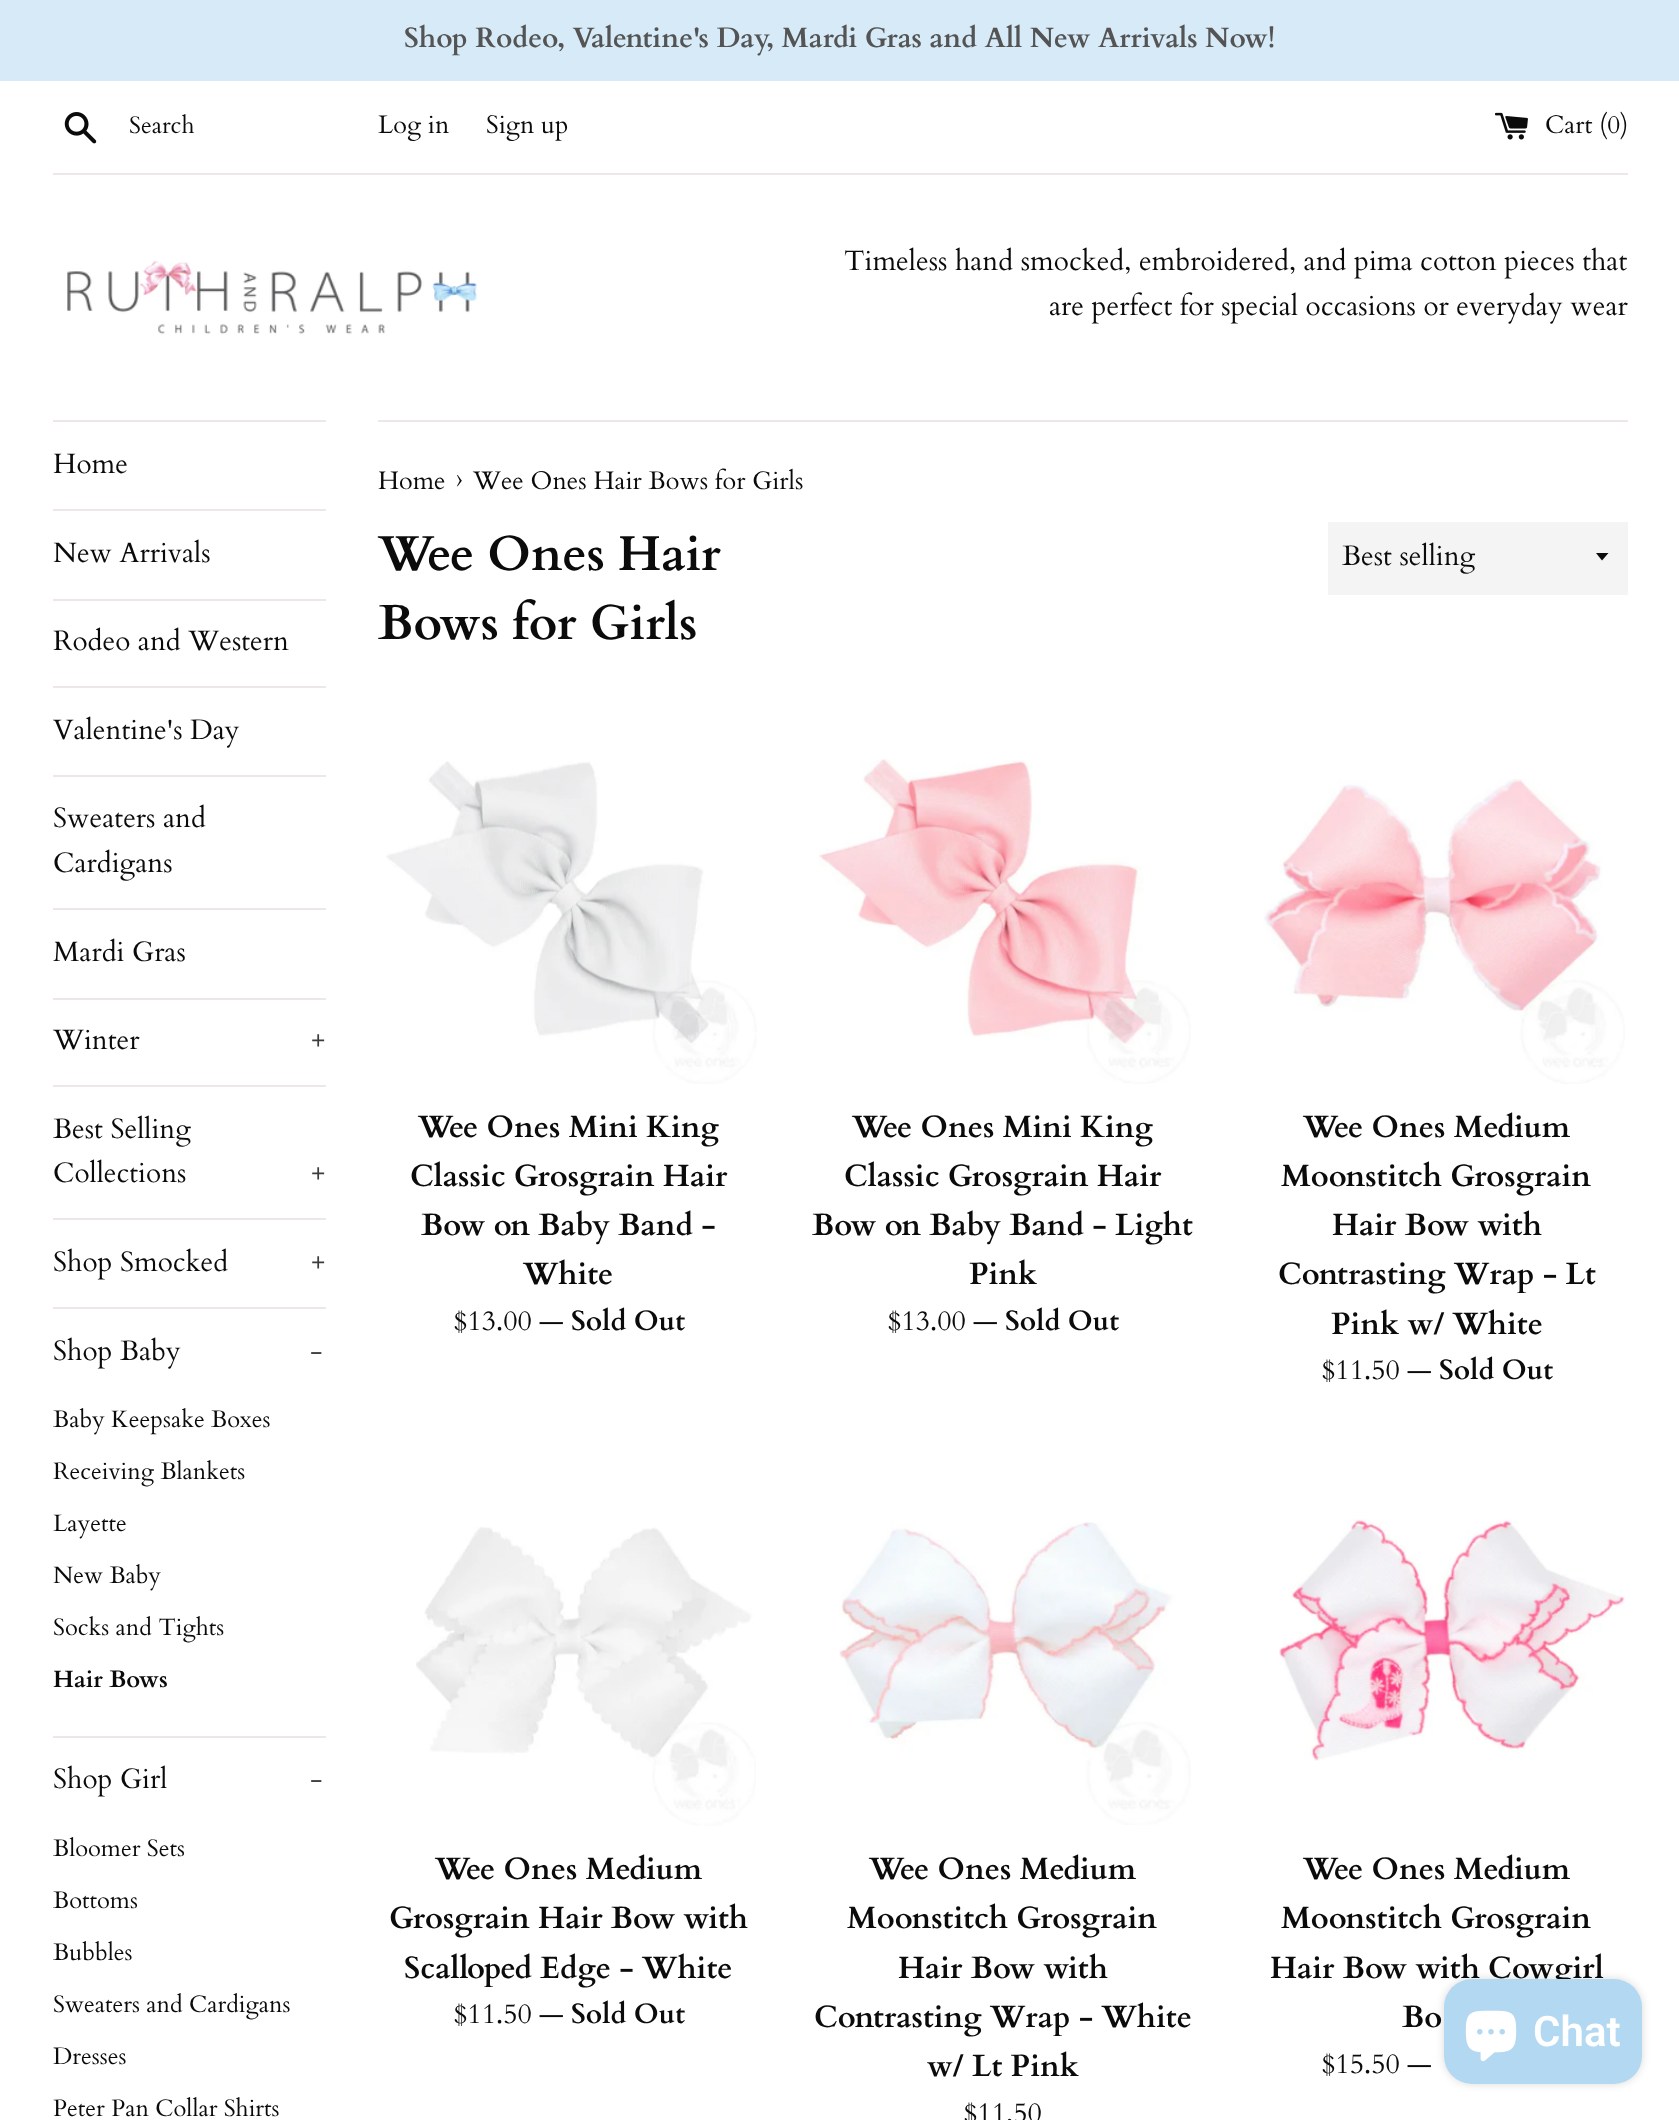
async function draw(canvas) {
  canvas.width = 1679;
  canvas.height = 2120;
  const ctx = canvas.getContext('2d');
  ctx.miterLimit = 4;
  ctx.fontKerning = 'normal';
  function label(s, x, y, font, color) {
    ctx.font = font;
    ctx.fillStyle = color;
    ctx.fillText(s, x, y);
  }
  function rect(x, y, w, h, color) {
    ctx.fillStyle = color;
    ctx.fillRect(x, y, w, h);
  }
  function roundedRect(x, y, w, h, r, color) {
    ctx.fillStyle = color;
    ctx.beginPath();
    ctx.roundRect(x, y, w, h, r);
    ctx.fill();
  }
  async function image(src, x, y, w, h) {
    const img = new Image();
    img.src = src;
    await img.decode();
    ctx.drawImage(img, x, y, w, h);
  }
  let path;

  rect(0, 0, 1679, 2120, '#fff');
  rect(0, 0, 1679, 81, '#d6eaf7');
  label('Shop Rodeo, Valentine\'s Day, Mardi Gras and All New Arrivals Now!', 404, 47, 'bold 28px Cardo', '#545454');
  await image('assets/img1.png', 64, 112, 33, 32);
  label('Search', 129, 133, '23.75px Cardo', '#0b0b0b');
  label('Log in', 378, 133, '25.25px Cardo', '#0b0b0b');
  label('Sign up', 486, 133, '25.25px Cardo', '#0b0b0b');
  await image('assets/img2.png', 1495, 112, 33, 28);
  label('Cart (0)', 1545, 133, '25.25px Cardo', '#0b0b0b');
  rect(53, 173, 1575, 2, '#ede8e7');
  await image('assets/img3.png', 67, 260, 410, 75);
  label('Timeless hand smocked, embroidered, and pima cotton pieces that', 844, 270, '28px Cardo', '#0b0b0b');
  label('are perfect for special occasions or everyday wear', 1049, 315, '28px Cardo', '#0b0b0b');
  rect(53, 420, 273, 2, '#ede8e7');
  rect(53, 509, 273, 2, '#ede8e7');
  label('Home', 53, 473, '28px Cardo', '#0b0b0b');
  rect(53, 599, 273, 2, '#ede8e7');
  label('New Arrivals', 53, 562, '28px Cardo', '#0b0b0b');
  rect(53, 686, 273, 2, '#ede8e7');
  label('Rodeo and Western', 53, 650, '28px Cardo', '#0b0b0b');
  rect(53, 775, 273, 2, '#ede8e7');
  label('Valentine\'s Day', 53, 739, '28px Cardo', '#0b0b0b');
  rect(53, 908, 273, 2, '#ede8e7');
  label('Sweaters and', 53, 827, '28px Cardo', '#0b0b0b');
  label('Cardigans', 53, 872, '28px Cardo', '#0b0b0b');
  rect(53, 998, 273, 2, '#ede8e7');
  label('Mardi Gras', 53, 961, '28px Cardo', '#0b0b0b');
  rect(53, 1085, 273, 2, '#ede8e7');
  label('Winter', 53, 1049, '28px Cardo', '#0b0b0b');
  label('+', 311, 1049, '28px Cardo', '#3c3c3c');
  rect(53, 1218, 273, 2, '#ede8e7');
  label('Best Selling', 53, 1138, '28px Cardo', '#0b0b0b');
  label('Collections', 53, 1182, '28px Cardo', '#0b0b0b');
  label('+', 311, 1182, '28px Cardo', '#3c3c3c');
  rect(53, 1307, 273, 2, '#ede8e7');
  label('Shop Smocked', 53, 1271, '28px Cardo', '#0b0b0b');
  label('+', 311, 1271, '28px Cardo', '#3c3c3c');
  rect(53, 1736, 273, 2, '#ede8e7');
  label('Shop Baby', 53, 1360, '28px Cardo', '#0b0b0b');
  label('-', 310, 1360, '28px Cardo', '#3c3c3c');
  label('Baby Keepsake Boxes', 53, 1427, '23.75px Cardo', '#0b0b0b');
  label('Receiving Blankets', 53, 1479, '23.75px Cardo', '#0b0b0b');
  label('Layette', 53, 1531, '23.75px Cardo', '#0b0b0b');
  label('New Baby', 53, 1583, '23.75px Cardo', '#0b0b0b');
  label('Socks and Tights', 53, 1635, '23.75px Cardo', '#0b0b0b');
  label('Hair Bows', 53, 1687, 'bold 23.75px Cardo', '#0b0b0b');
  label('Shop Girl', 53, 1788, '28px Cardo', '#0b0b0b');
  label('-', 310, 1788, '28px Cardo', '#3c3c3c');
  label('Bloomer Sets', 53, 1856, '23.75px Cardo', '#0b0b0b');
  label('Bottoms', 53, 1908, '23.75px Cardo', '#0b0b0b');
  label('Bubbles', 53, 1960, '23.75px Cardo', '#0b0b0b');
  label('Sweaters and Cardigans', 53, 2012, '23.75px Cardo', '#0b0b0b');
  label('Dresses', 53, 2064, '23.75px Cardo', '#0b0b0b');
  label('Peter Pan Collar Shirts', 53, 2116, '23.75px Cardo', '#0b0b0b');
  rect(378, 420, 1250, 2, '#ede8e7');
  label('Home', 378, 489, '25.25px Cardo', '#0b0b0b');
  label('›', 456, 489, '30.75px Cardo', '#0b0b0b');
  label('Wee Ones Hair Bows for Girls', 473, 489, '25.25px Cardo', '#0b0b0b');
  label('Wee Ones Hair', 378, 570, 'bold 49px Cardo', '#0b0b0b');
  label('Bows for Girls', 378, 639, 'bold 49px Cardo', '#0b0b0b');
  rect(1328, 522, 300, 73, '#f4f4f4');
  ctx.fillStyle = '#0b0b0b';
  path = new Path2D('M1596 553L1602 560.5L1608.5 553Z');
  ctx.fill(path);
  label('Best selling', 1342, 565, '28px Cardo', '#0b0b0b');
  await image('assets/img4.png', 386, 761, 371, 323);
  label('Wee Ones Mini King', 418, 1137, 'bold 30.75px Cardo', '#0b0b0b');
  label('Classic Grosgrain Hair', 410, 1186, 'bold 30.75px Cardo', '#0b0b0b');
  label('Bow on Baby Band -', 421, 1235, 'bold 30.75px Cardo', '#0b0b0b');
  label('White', 523, 1284, 'bold 30.75px Cardo', '#0b0b0b');
  label('$13.00 —', 453, 1330, '28px Cardo', '#0b0b0b');
  label('Sold Out', 571, 1330, 'bold 28px Cardo', '#0b0b0b');
  await image('assets/img5.png', 819, 759, 372, 325);
  label('Wee Ones Mini King', 852, 1137, 'bold 30.75px Cardo', '#0b0b0b');
  label('Classic Grosgrain Hair', 844, 1186, 'bold 30.75px Cardo', '#0b0b0b');
  label('Bow on Baby Band - Light', 812, 1235, 'bold 30.75px Cardo', '#0b0b0b');
  label('Pink', 969, 1284, 'bold 30.75px Cardo', '#0b0b0b');
  label('$13.00 —', 887, 1330, '28px Cardo', '#0b0b0b');
  label('Sold Out', 1005, 1330, 'bold 28px Cardo', '#0b0b0b');
  await image('assets/img6.png', 1263, 779, 362, 305);
  label('Wee Ones Medium', 1303, 1137, 'bold 30.75px Cardo', '#0b0b0b');
  label('Moonstitch Grosgrain', 1281, 1186, 'bold 30.75px Cardo', '#0b0b0b');
  label('Hair Bow with', 1332, 1235, 'bold 30.75px Cardo', '#0b0b0b');
  label('Contrasting Wrap - Lt', 1278, 1284, 'bold 30.75px Cardo', '#0b0b0b');
  label('Pink w/ White', 1331, 1334, 'bold 30.75px Cardo', '#0b0b0b');
  label('$11.50 —', 1321, 1379, '28px Cardo', '#0b0b0b');
  label('Sold Out', 1439, 1379, 'bold 28px Cardo', '#0b0b0b');
  await image('assets/img7.png', 416, 1527, 340, 299);
  label('Wee Ones Medium', 435, 1879, 'bold 30.75px Cardo', '#0b0b0b');
  label('Grosgrain Hair Bow with', 389, 1928, 'bold 30.75px Cardo', '#0b0b0b');
  label('Scalloped Edge - White', 404, 1978, 'bold 30.75px Cardo', '#0b0b0b');
  label('$11.50 —', 453, 2023, '28px Cardo', '#0b0b0b');
  label('Sold Out', 571, 2023, 'bold 28px Cardo', '#0b0b0b');
  await image('assets/img8.png', 839, 1522, 352, 303);
  label('Wee Ones Medium', 869, 1879, 'bold 30.75px Cardo', '#0b0b0b');
  label('Moonstitch Grosgrain', 847, 1928, 'bold 30.75px Cardo', '#0b0b0b');
  label('Hair Bow with', 898, 1978, 'bold 30.75px Cardo', '#0b0b0b');
  label('Contrasting Wrap - White', 814, 2027, 'bold 30.75px Cardo', '#0b0b0b');
  label('w/ Lt Pink', 927, 2076, 'bold 30.75px Cardo', '#0b0b0b');
  label('$11.50', 963, 2122, '28px Cardo', '#0b0b0b');
  await image('assets/img9.png', 1279, 1519, 346, 242);
  label('Wee Ones Medium', 1303, 1879, 'bold 30.75px Cardo', '#0b0b0b');
  label('Moonstitch Grosgrain', 1281, 1928, 'bold 30.75px Cardo', '#0b0b0b');
  label('Hair Bow with Cowgirl', 1270, 1978, 'bold 30.75px Cardo', '#0b0b0b');
  label('Bo', 1402, 2027, 'bold 30.75px Cardo', '#0b0b0b');
  label('$15.50 —', 1321, 2073, '28px Cardo', '#0b0b0b');
  ctx.fillStyle = '#00000026';
  ctx.filter = 'blur(4.5px)';
  ctx.beginPath();
  ctx.roundRect(1444, 1979, 198, 105, 28);
  ctx.fill();
  ctx.filter = 'none';
  roundedRect(1444, 1979, 198, 105, 28, '#b3d8f1');
  await image('assets/img10.png', 1465, 2010, 52, 52);
  label('Chat', 1533, 2046, '600 42px Roboto', '#fff');
}

draw(document.querySelector('canvas'));
